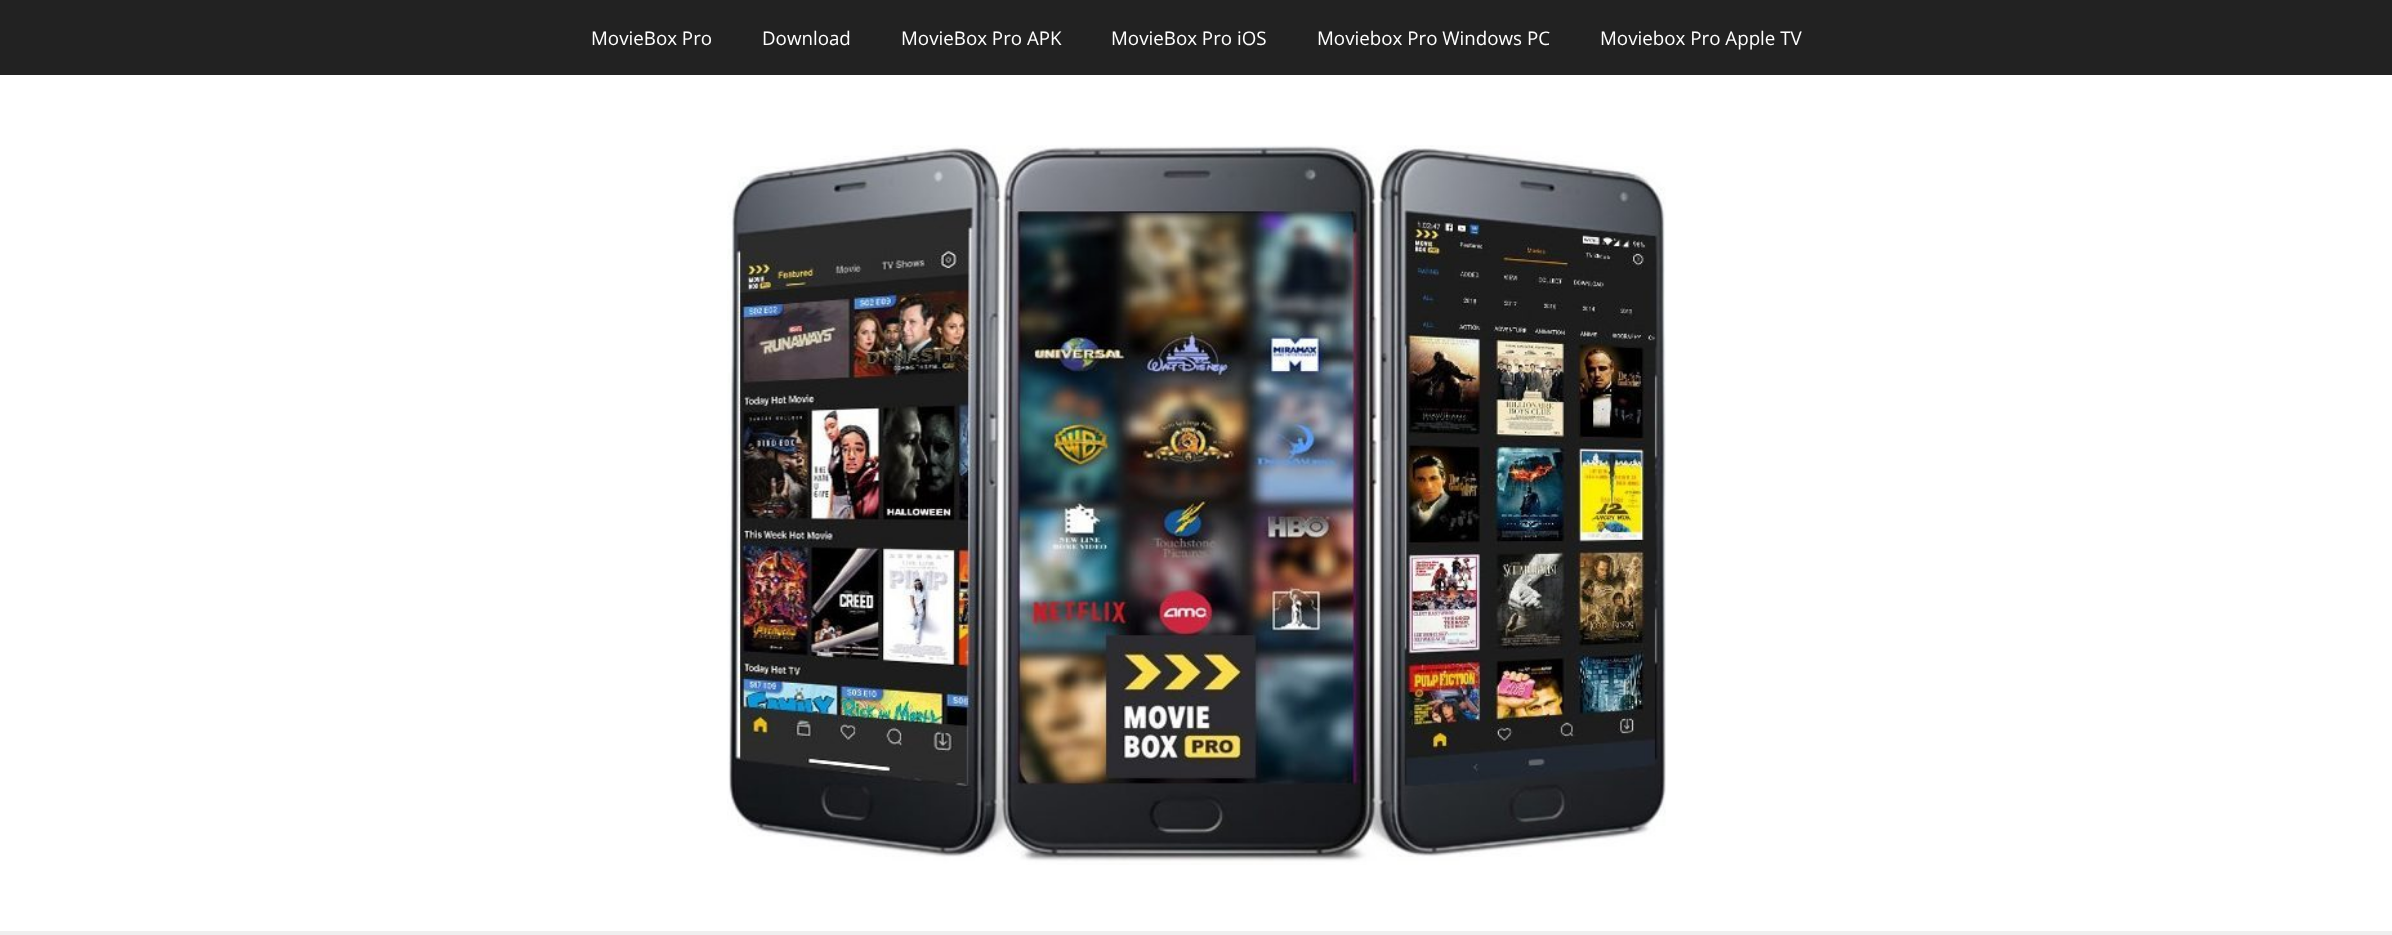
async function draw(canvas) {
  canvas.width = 2392;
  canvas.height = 935;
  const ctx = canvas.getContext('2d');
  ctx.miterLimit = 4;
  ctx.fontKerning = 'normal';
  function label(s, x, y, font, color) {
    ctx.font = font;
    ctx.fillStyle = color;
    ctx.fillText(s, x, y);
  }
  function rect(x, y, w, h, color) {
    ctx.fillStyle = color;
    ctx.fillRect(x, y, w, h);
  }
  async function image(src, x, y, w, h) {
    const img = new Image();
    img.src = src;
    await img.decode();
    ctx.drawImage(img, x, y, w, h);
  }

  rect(0, 0, 2392, 935, '#efefef');
  rect(0, 0, 2392, 75, '#222');
  label('MovieBox Pro', 591, 45, '18.75px Open Sans', '#fff');
  label('Download', 762, 45, '18.75px Open Sans', '#fff');
  label('MovieBox Pro APK', 901, 45, '18.75px Open Sans', '#fff');
  label('MovieBox Pro iOS', 1111, 45, '18.75px Open Sans', '#fff');
  label('Moviebox Pro Windows PC', 1317, 45, '18.75px Open Sans', '#fff');
  label('Moviebox Pro Apple TV', 1600, 45, '18.75px Open Sans', '#fff');
  rect(0, 75, 2392, 856, '#fff');
  await image('assets/img1.png', 727, 145, 939, 720);
}

draw(document.querySelector('canvas'));
